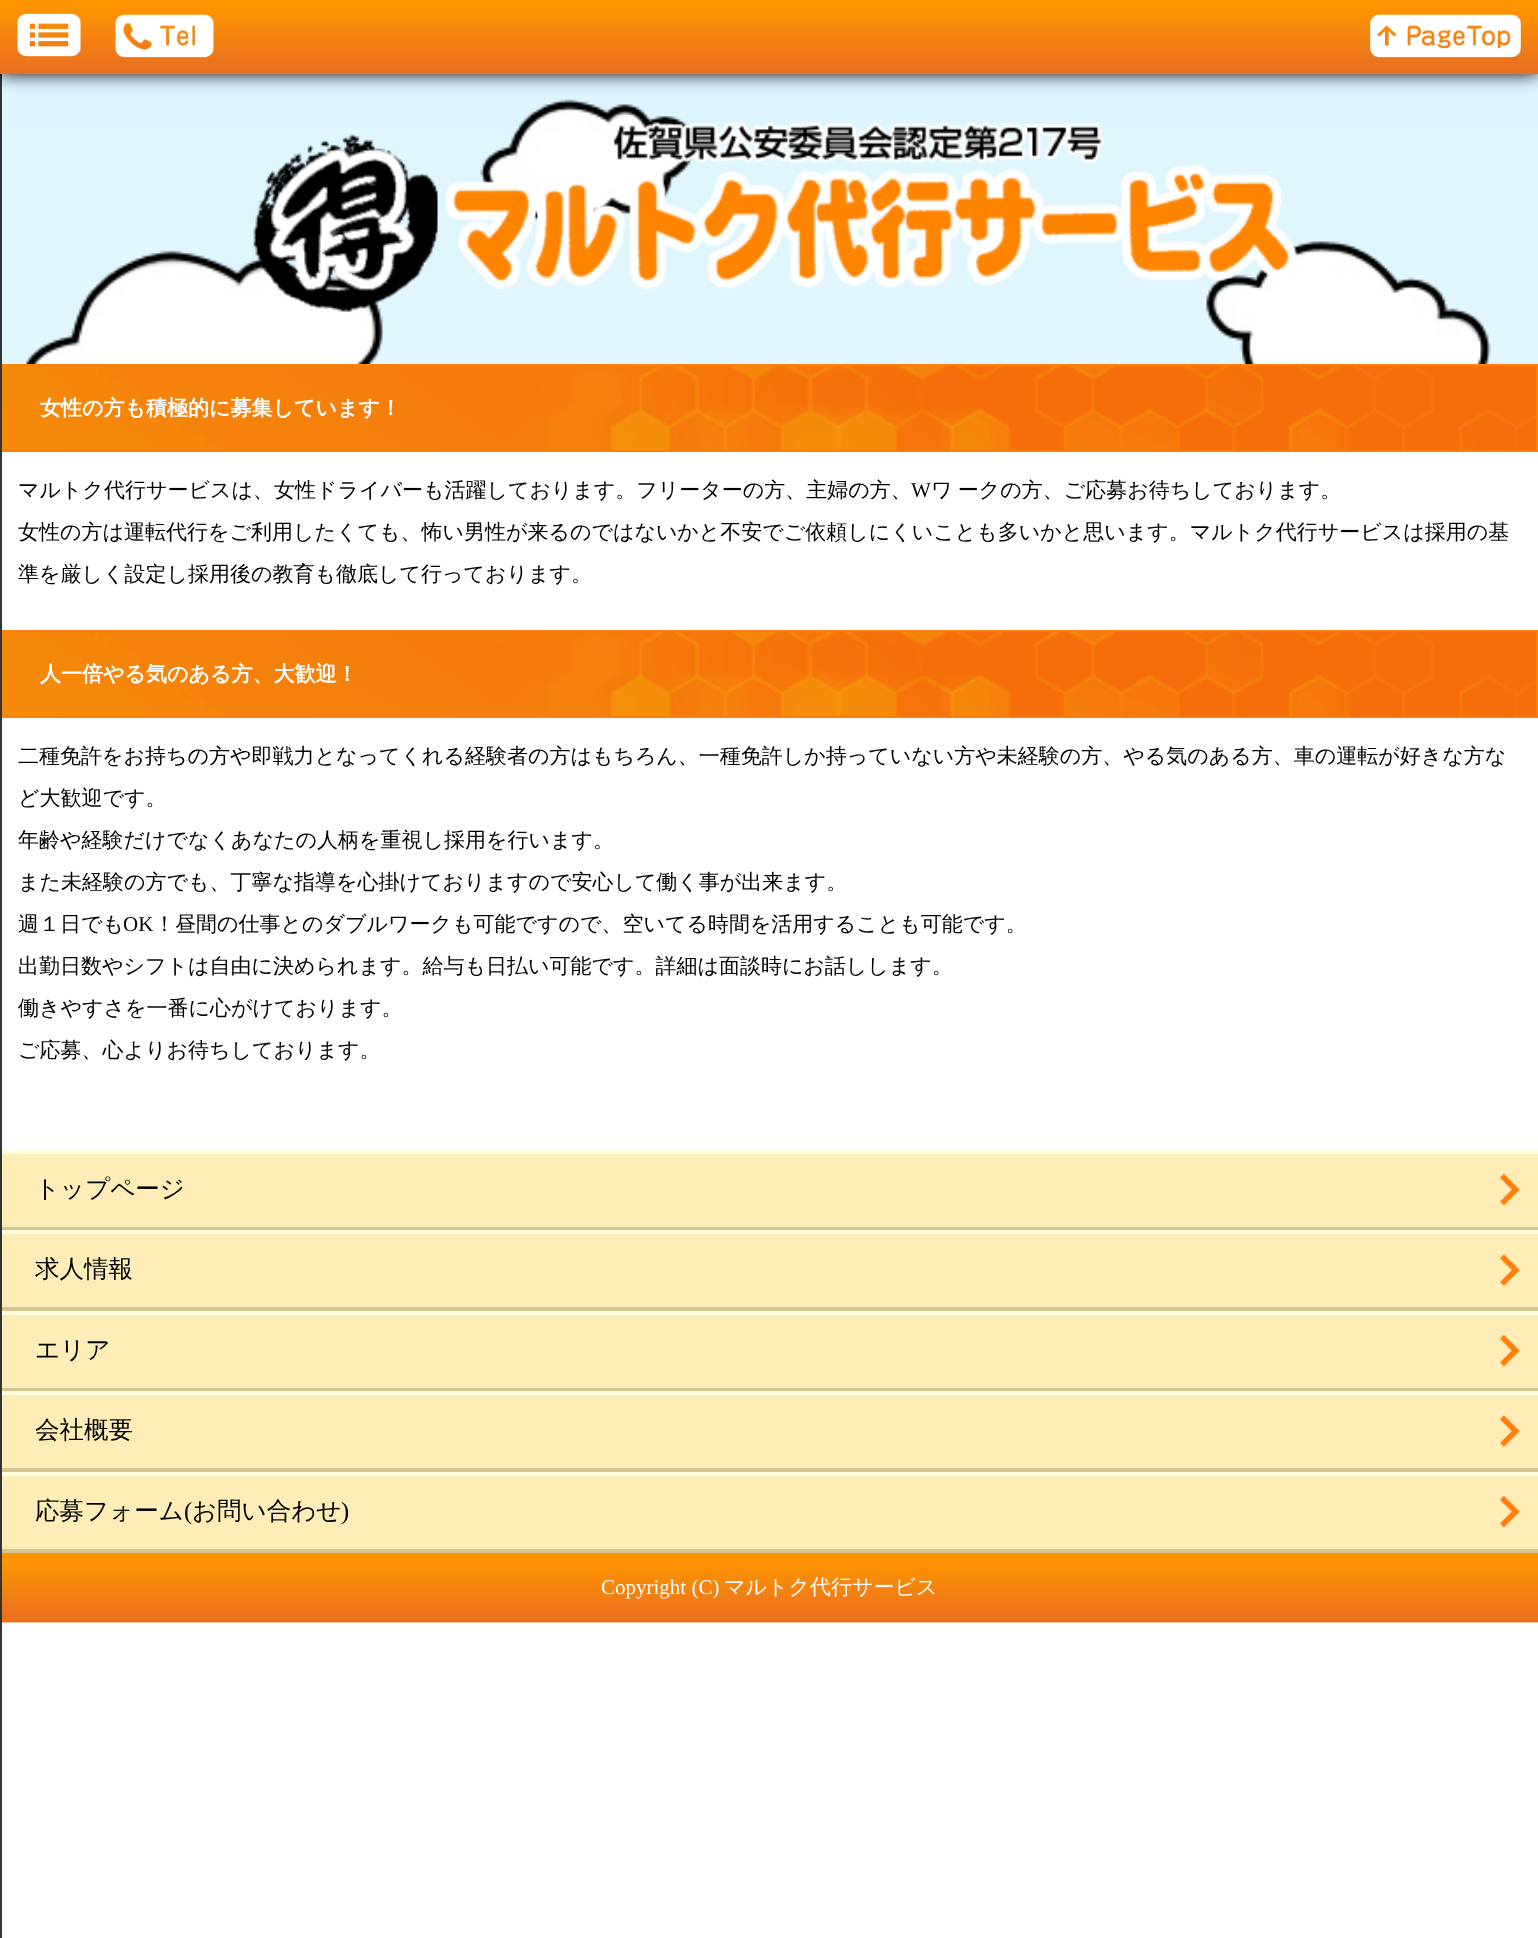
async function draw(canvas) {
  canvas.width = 1538;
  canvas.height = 1938;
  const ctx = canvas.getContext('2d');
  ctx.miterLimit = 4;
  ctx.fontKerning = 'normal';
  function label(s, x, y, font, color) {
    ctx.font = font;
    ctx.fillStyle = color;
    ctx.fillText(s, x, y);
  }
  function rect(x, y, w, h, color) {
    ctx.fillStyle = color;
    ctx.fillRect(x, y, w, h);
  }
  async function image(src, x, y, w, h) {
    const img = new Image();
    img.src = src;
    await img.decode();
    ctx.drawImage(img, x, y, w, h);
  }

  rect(0, 0, 1538, 1938, '#fff');
  await image('assets/img7.png', 2, 366, 1534, 84);
  ctx.strokeStyle = '#ff7e0c';
  ctx.lineWidth = 2;
  ctx.strokeRect(1, 365, 1536, 86);
  await image('assets/img7.png', 2, 632, 1534, 84);
  ctx.strokeRect(1, 631, 1536, 86);
  rect(0, 1150, 1538, 4, '#ffffe0');
  rect(0, 1227, 1538, 3, '#d7c590');
  rect(0, 1230, 1538, 4, '#ffffe0');
  rect(0, 1307, 1538, 4, '#d7c590');
  rect(0, 1311, 1538, 4, '#ffffe0');
  rect(0, 1388, 1538, 3, '#d7c590');
  rect(0, 1391, 1538, 4, '#ffffe0');
  rect(0, 1468, 1538, 4, '#d7c590');
  rect(0, 1472, 1538, 4, '#ffffe0');
  rect(0, 1549, 1538, 4, '#d7c590');
  rect(0, 74, 2, 1864, '#333');
  await image('assets/img5.png', 2, 74, 1536, 290);
  ctx.fillStyle = '#000';
  ctx.filter = 'blur(9px)';
  ctx.beginPath();
  ctx.rect(0, 0, 1538, 74);
  ctx.fill();
  ctx.filter = 'none';
  await image('assets/img1.png', 0, 0, 1538, 74);
  await image('assets/img2.png', 17, 13, 64, 44);
  await image('assets/img3.png', 115, 14, 99, 44);
  await image('assets/img4.png', 1370, 14, 151, 44);
  await image('assets/img6.png', 253, 122, 1045, 190);
  label('女性の方も積極的に募集しています！', 40, 415, 'bold 21px WenQuanYi Zen Hei', '#fff');
  label('マルトク代行サービスは、女性ドライバーも活躍しております。フリーターの方、主婦の方、', 18, 497, '500 21px WenQuanYi Zen Hei', '#000');
  label('W', 911, 497, '21px Liberation Serif', '#000');
  ctx.wordSpacing = '-1px';
  label('ワ ークの方、ご応募お待ちしております。', 931, 497, '500 21px WenQuanYi Zen Hei', '#000');
  ctx.wordSpacing = '0px';
  label('女性の方は運転代行をご利用したくても、怖い男性が来るのではないかと不安でご依頼しにくいことも多いかと思います。マルトク代行サービスは採用の基', 18, 539, '500 21px WenQuanYi Zen Hei', '#000');
  label('準を厳しく設定し採用後の教育も徹底して行っております。', 18, 581, '500 21px WenQuanYi Zen Hei', '#000');
  label('人一倍やる気のある方、大歓迎！', 40, 681, 'bold 21px WenQuanYi Zen Hei', '#fff');
  label('二種免許をお持ちの方や即戦力となってくれる経験者の方はもちろん、一種免許しか持っていない方や未経験の方、やる気のある方、車の運転が好きな方な', 18, 763, '500 21px WenQuanYi Zen Hei', '#000');
  label('ど大歓迎です。', 18, 805, '500 21px WenQuanYi Zen Hei', '#000');
  label('年齢や経験だけでなくあなたの人柄を重視し採用を行います。', 18, 847, '500 21px WenQuanYi Zen Hei', '#000');
  label('また未経験の方でも、丁寧な指導を心掛けておりますので安心して働く事が出来ます。', 18, 889, '500 21px WenQuanYi Zen Hei', '#000');
  label('週１日でも', 18, 931, '500 21px WenQuanYi Zen Hei', '#000');
  label('OK', 123, 931, '21px Liberation Serif', '#000');
  label('！昼間の仕事とのダブルワークも可能ですので、空いてる時間を活用することも可能です。', 154, 931, '500 21px WenQuanYi Zen Hei', '#000');
  label('出勤日数やシフトは自由に決められます。給与も日払い可能です。詳細は面談時にお話しします。', 18, 973, '500 21px WenQuanYi Zen Hei', '#000');
  label('働きやすさを一番に心がけております。', 18, 1015, '500 21px WenQuanYi Zen Hei', '#000');
  label('ご応募、心よりお待ちしております。', 18, 1057, '500 21px WenQuanYi Zen Hei', '#000');
  rect(2, 1154, 1536, 73, '#ffedb8');
  await image('assets/img8.png', 1499, 1173, 21, 33);
  label('トップページ', 35, 1197, '500 24.5px WenQuanYi Zen Hei', '#000');
  rect(2, 1234, 1536, 73, '#ffedb8');
  await image('assets/img9.png', 1499, 1254, 21, 33);
  label('求人情報', 35, 1277, '500 24.5px WenQuanYi Zen Hei', '#000');
  rect(2, 1315, 1536, 73, '#ffedb8');
  await image('assets/img8.png', 1499, 1334, 21, 33);
  label('エリア', 35, 1358, '500 24.5px WenQuanYi Zen Hei', '#000');
  rect(2, 1395, 1536, 73, '#ffedb8');
  await image('assets/img9.png', 1499, 1415, 21, 33);
  label('会社概要', 35, 1438, '500 24.5px WenQuanYi Zen Hei', '#000');
  rect(2, 1476, 1536, 73, '#ffedb8');
  await image('assets/img8.png', 1499, 1495, 21, 33);
  label('応募フォーム', 35, 1519, '500 24.5px WenQuanYi Zen Hei', '#000');
  label('(', 184, 1519, '24.5px Liberation Serif', '#000');
  label('お問い合わせ', 192, 1519, '500 24.5px WenQuanYi Zen Hei', '#000');
  label(')', 341, 1519, '24.5px Liberation Serif', '#000');
  await image('assets/img10.png', 2, 1622, 1536, 1);
  await image('assets/img11.png', 2, 1553, 1536, 70);
  label('Copyright (C)', 601, 1594, '21px Liberation Serif', '#fff');
  label('マルトク代行サービス', 724, 1594, '500 21px WenQuanYi Zen Hei', '#fff');
}

draw(document.querySelector('canvas'));
